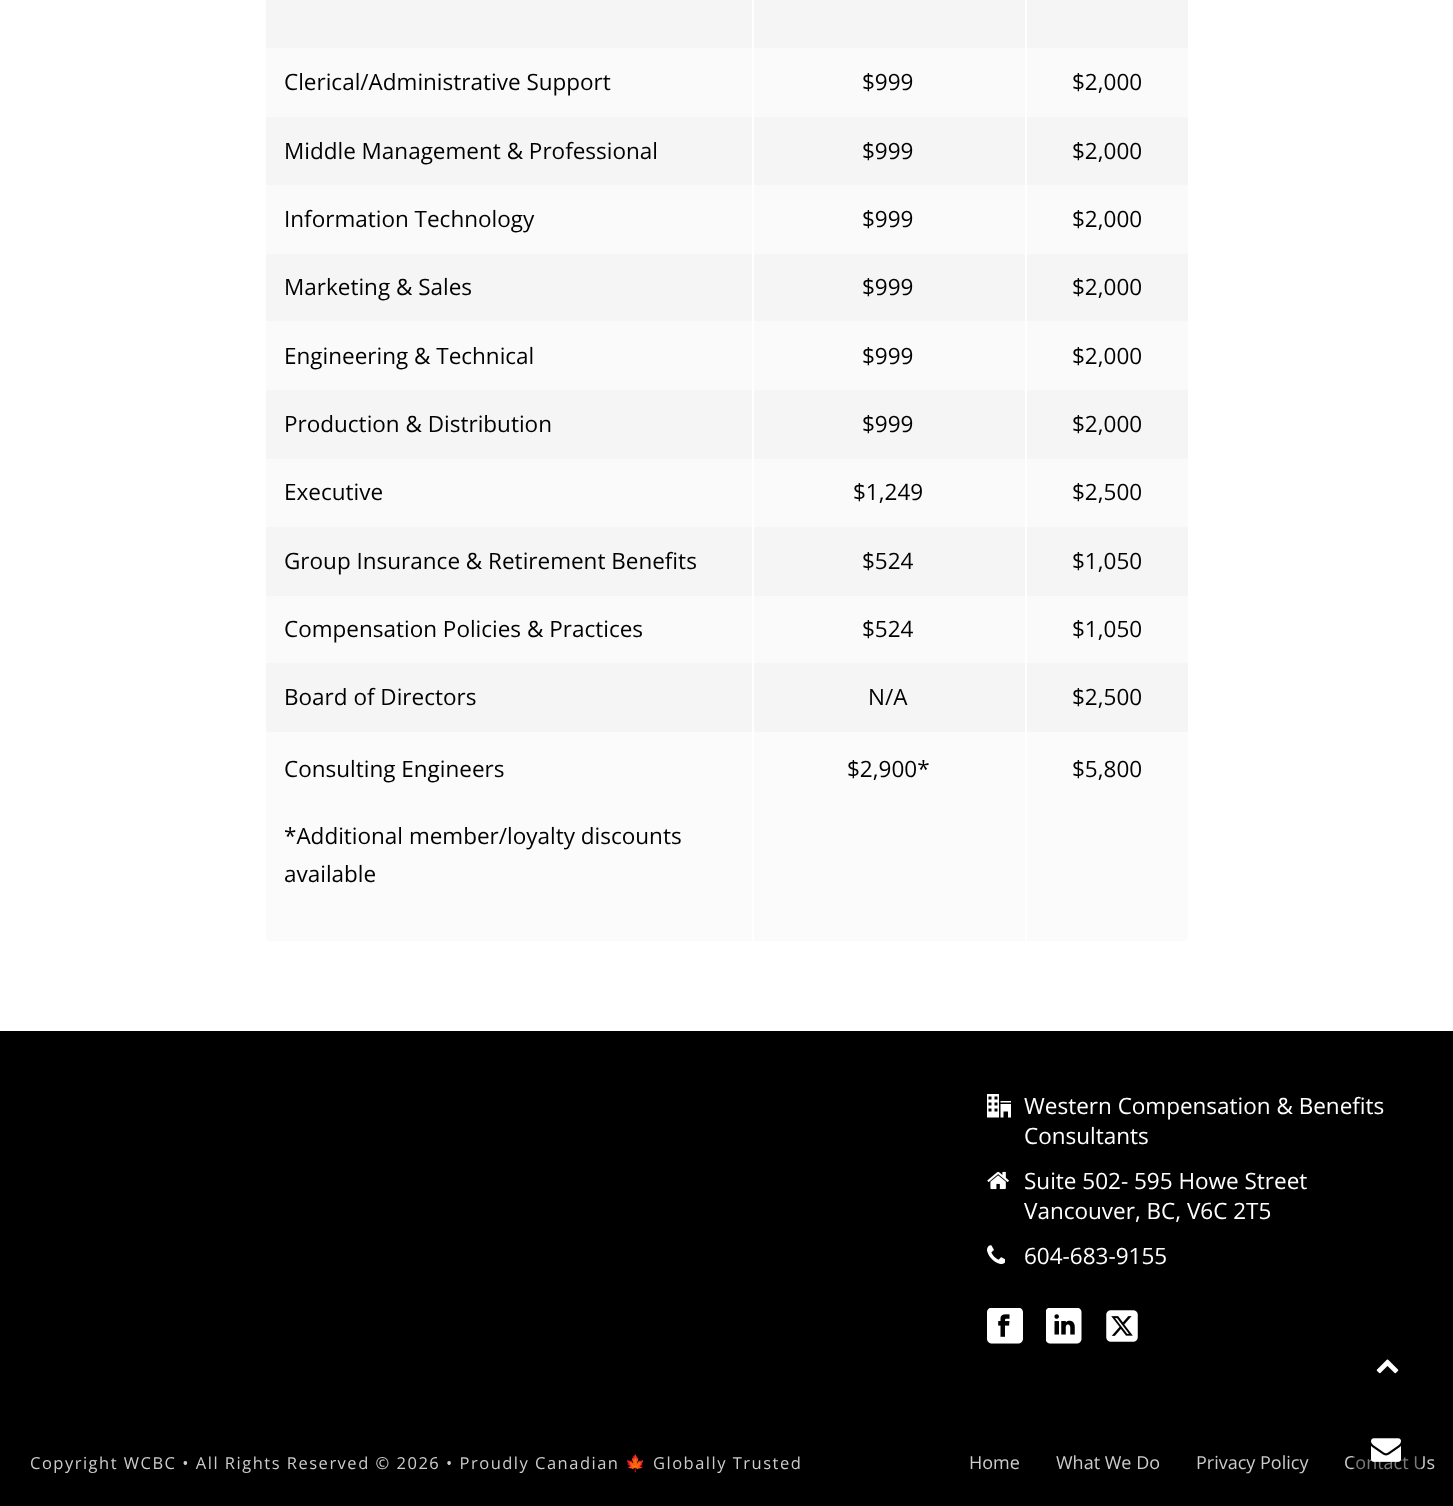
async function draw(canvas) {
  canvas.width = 1453;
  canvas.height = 1506;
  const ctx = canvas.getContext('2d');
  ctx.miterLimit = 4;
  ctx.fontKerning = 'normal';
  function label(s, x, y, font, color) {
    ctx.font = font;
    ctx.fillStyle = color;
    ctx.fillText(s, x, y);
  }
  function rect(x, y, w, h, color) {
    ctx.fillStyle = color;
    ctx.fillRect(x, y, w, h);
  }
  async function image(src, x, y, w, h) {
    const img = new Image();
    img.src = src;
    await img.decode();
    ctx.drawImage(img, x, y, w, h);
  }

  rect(0, 0, 1453, 1506, '#fff');
  rect(266, 0, 922, 48, '#f5f5f5');
  rect(266, 48, 922, 69, '#fafafa');
  label('Clerical/Administrative Support', 284, 90, '22.5px Open Sans', '#000');
  label('$999', 862, 90, '22.5px Open Sans', '#000');
  label('$2,000', 1072, 90, '22.5px Open Sans', '#000');
  rect(266, 117, 922, 68, '#f5f5f5');
  label('Middle Management & Professional', 284, 159, '22.5px Open Sans', '#000');
  label('$999', 862, 159, '22.5px Open Sans', '#000');
  label('$2,000', 1072, 159, '22.5px Open Sans', '#000');
  rect(266, 185, 922, 69, '#fafafa');
  label('Information Technology', 284, 227, '22.5px Open Sans', '#000');
  label('$999', 862, 227, '22.5px Open Sans', '#000');
  label('$2,000', 1072, 227, '22.5px Open Sans', '#000');
  rect(266, 254, 922, 67, '#f5f5f5');
  label('Marketing & Sales', 284, 295, '22.5px Open Sans', '#000');
  label('$999', 862, 295, '22.5px Open Sans', '#000');
  label('$2,000', 1072, 295, '22.5px Open Sans', '#000');
  rect(266, 321, 922, 69, '#fafafa');
  label('Engineering & Technical', 284, 364, '22.5px Open Sans', '#000');
  label('$999', 862, 364, '22.5px Open Sans', '#000');
  label('$2,000', 1072, 364, '22.5px Open Sans', '#000');
  rect(266, 390, 922, 69, '#f5f5f5');
  label('Production & Distribution', 284, 432, '22.5px Open Sans', '#000');
  label('$999', 862, 432, '22.5px Open Sans', '#000');
  label('$2,000', 1072, 432, '22.5px Open Sans', '#000');
  rect(266, 459, 922, 68, '#fafafa');
  label('Executive', 284, 500, '22.5px Open Sans', '#000');
  label('$1,249', 853, 500, '22.5px Open Sans', '#000');
  label('$2,500', 1072, 500, '22.5px Open Sans', '#000');
  rect(266, 527, 922, 69, '#f5f5f5');
  label('Group Insurance & Retirement Benefits', 284, 569, '22.5px Open Sans', '#000');
  label('$524', 862, 569, '22.5px Open Sans', '#000');
  label('$1,050', 1072, 569, '22.5px Open Sans', '#000');
  rect(266, 596, 922, 67, '#fafafa');
  label('Compensation Policies & Practices', 284, 637, '22.5px Open Sans', '#000');
  label('$524', 862, 637, '22.5px Open Sans', '#000');
  label('$1,050', 1072, 637, '22.5px Open Sans', '#000');
  rect(266, 663, 922, 69, '#f5f5f5');
  label('Board of Directors', 284, 705, '22.5px Open Sans', '#000');
  label('N/A', 868, 705, '22.5px Open Sans', '#000');
  label('$2,500', 1072, 705, '22.5px Open Sans', '#000');
  ctx.save();
  ctx.beginPath();
  ctx.roundRect(264, -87, 924, 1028, 5);
  ctx.clip();
  ctx.fillStyle = '#fbfbfb';
  ctx.beginPath();
  ctx.roundRect(266, 732, 922, 209, [0, 0, 5, 0]);
  ctx.fill();
  ctx.restore();
  label('Consulting Engineers', 284, 777, '22.5px Open Sans', '#000');
  label('*Additional member/loyalty discounts', 284, 844, '22.5px Open Sans', '#000');
  label('available', 284, 882, '22.5px Open Sans', '#000');
  rect(752, 0, 2, 941, '#fff');
  label('$2,900*', 847, 777, '22.5px Open Sans', '#000');
  rect(1025, 0, 2, 941, '#fff');
  label('$5,800', 1072, 777, '22.5px Open Sans', '#000');
  rect(0, 1031, 1453, 475, '#000');
  await image('assets/img1.png', 987, 1094, 24, 24);
  label('Western Compensation & Benefits', 1024, 1114, '22.5px Open Sans', '#fff');
  label('Consultants', 1024, 1144, '22.5px Open Sans', '#fff');
  await image('assets/img2.png', 987, 1171, 22, 19);
  label('Suite 502- 595 Howe Street', 1024, 1189, '22.5px Open Sans', '#fff');
  label('Vancouver, BC, V6C 2T5', 1024, 1219, '22.5px Open Sans', '#fff');
  await image('assets/img3.png', 987, 1245, 18, 20);
  label('604-683-9155', 1024, 1264, '22.5px Open Sans', '#fff');
  await image('assets/img4.png', 987, 1308, 36, 36);
  await image('assets/img5.png', 1046, 1308, 36, 36);
  await image('assets/img6.png', 1106, 1310, 32, 32);
  ctx.letterSpacing = '1.5px';
  label('Copyright WCBC • All Rights Reserved © 2026 • Proudly Canadian', 30, 1469, '16.5px Open Sans', '#ccc');
  label('🍁', 625, 1469, '16.5px Noto Color Emoji', '#ccc');
  label('Globally Trusted', 653, 1469, '16.5px Open Sans', '#ccc');
  ctx.letterSpacing = '0px';
  label('Home', 969, 1469, '18px Open Sans', '#ccc');
  label('What We Do', 1056, 1469, '18px Open Sans', '#ccc');
  label('Privacy Policy', 1196, 1469, '18px Open Sans', '#ccc');
  label('Contact Us', 1344, 1469, '18px Open Sans', '#ccc');
  await image('assets/img7.png', 1376, 1359, 23, 15);
  rect(1353, 1456, 68, 14, '#00000066');
  await image('assets/img8.png', 1371, 1438, 30, 24);
}

draw(document.querySelector('canvas'));
